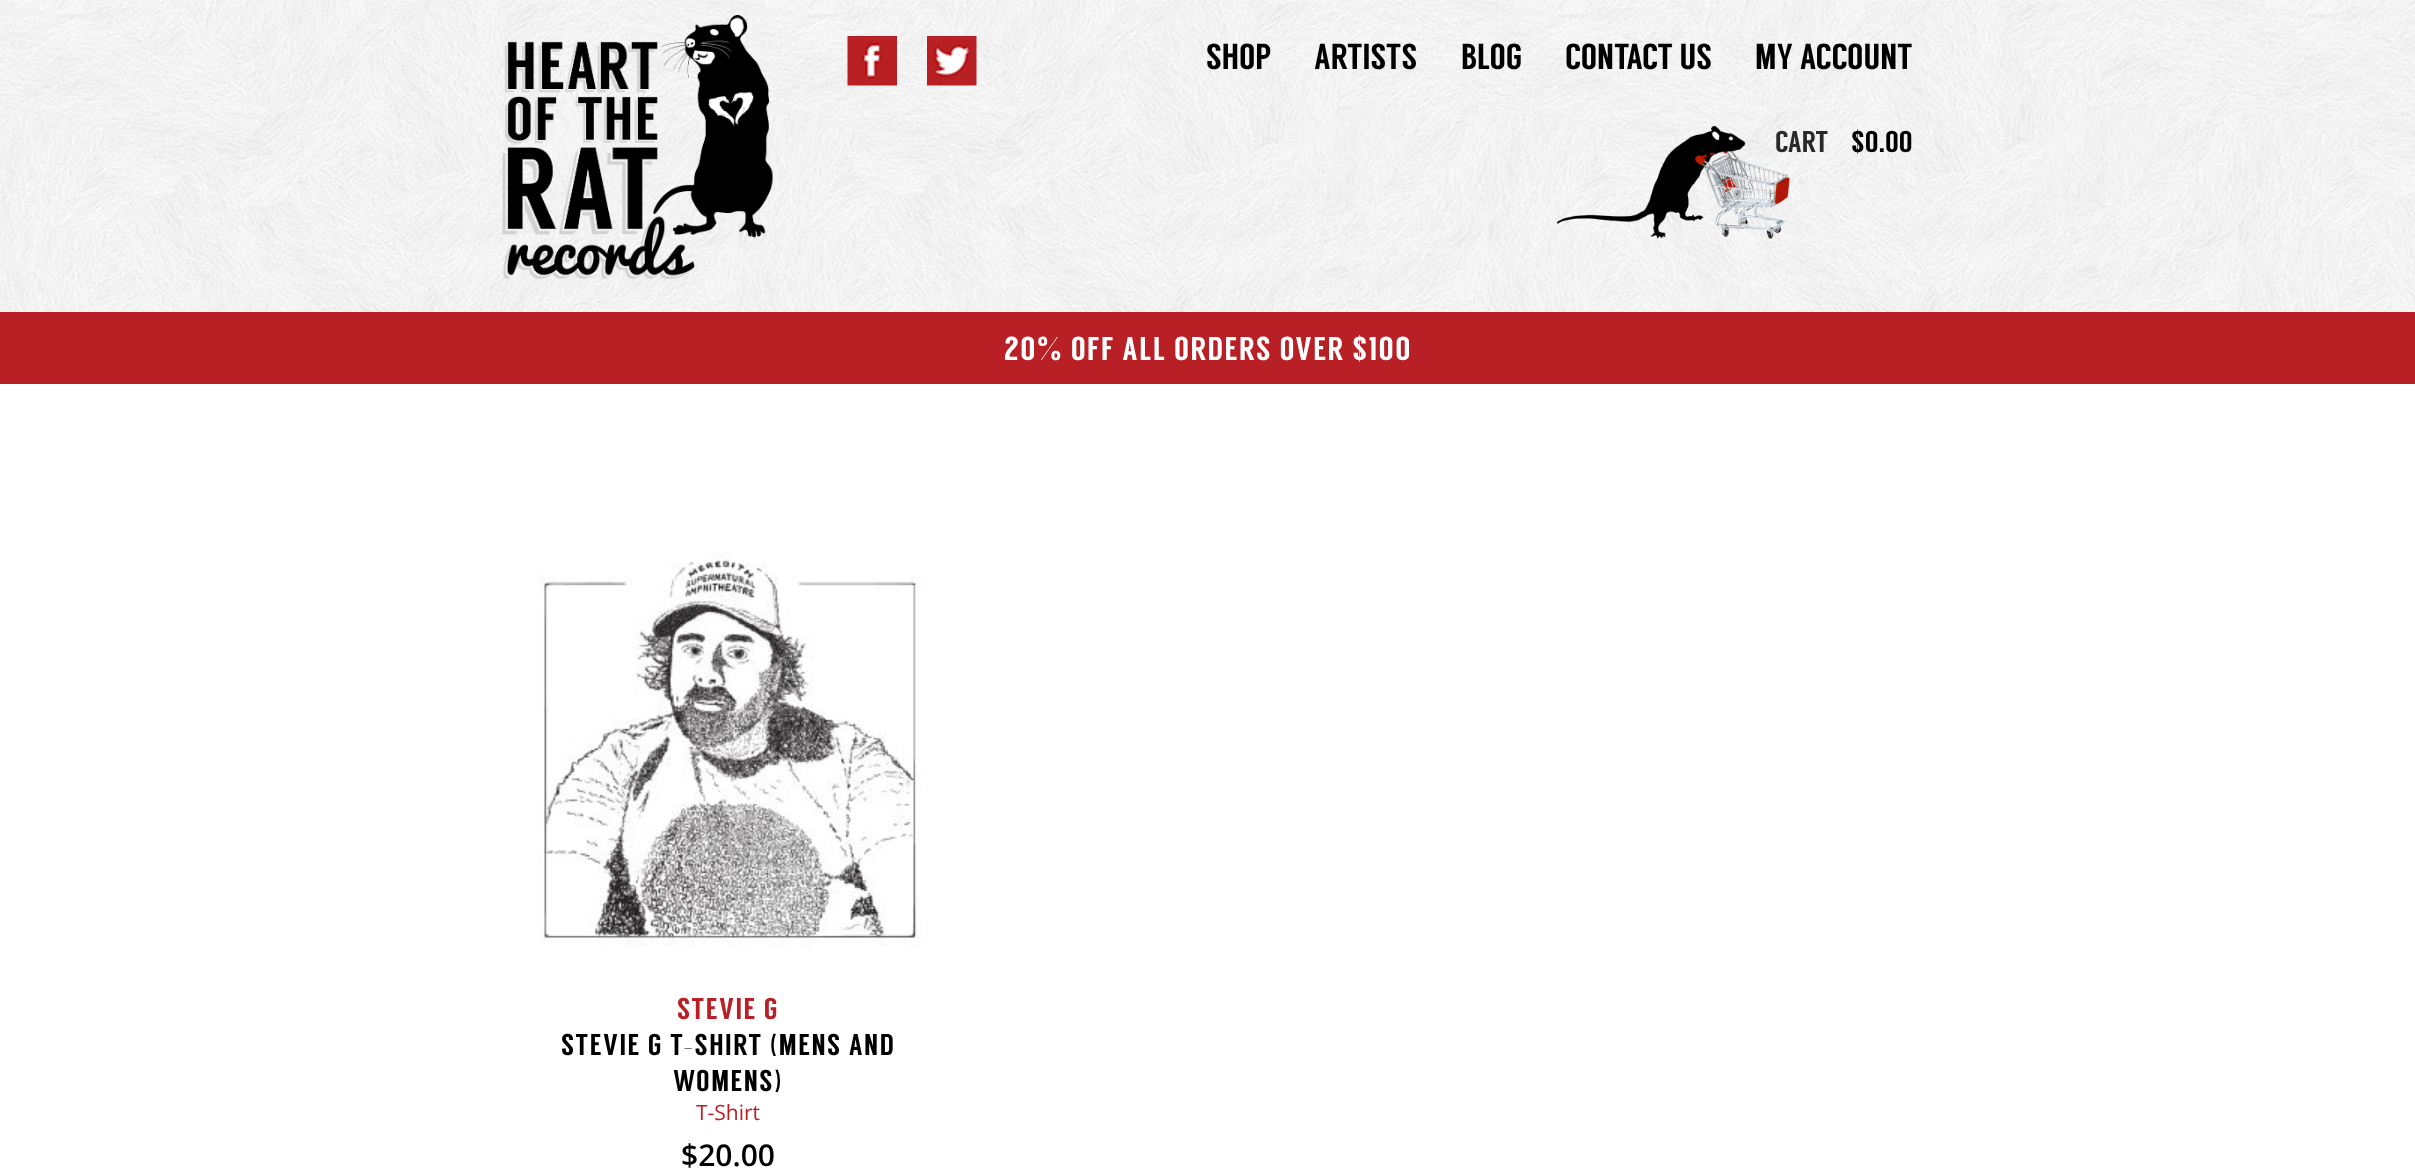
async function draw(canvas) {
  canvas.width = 2415;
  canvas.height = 1176;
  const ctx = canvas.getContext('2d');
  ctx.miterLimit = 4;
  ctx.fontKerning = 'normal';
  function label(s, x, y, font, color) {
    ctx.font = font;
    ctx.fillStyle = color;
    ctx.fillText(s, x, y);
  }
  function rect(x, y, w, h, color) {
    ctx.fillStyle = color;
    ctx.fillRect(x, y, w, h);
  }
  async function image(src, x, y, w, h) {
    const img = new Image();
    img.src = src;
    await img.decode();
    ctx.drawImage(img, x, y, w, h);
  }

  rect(0, 0, 2415, 1176, '#fff');
  await image('assets/img1.png', 0, 0, 2415, 312);
  await image('assets/img2.png', 502, 15, 271, 264);
  await image('assets/img3.png', 847, 36, 50, 50);
  await image('assets/img4.png', 927, 36, 50, 50);
  label('SHOP', 1206, 69, '36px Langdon', '#000');
  label('ARTISTS', 1314, 69, '36px Langdon', '#000');
  label('BLOG', 1461, 69, '36px Langdon', '#000');
  label('CONTACT US', 1565, 69, '36px Langdon', '#000');
  label('MY ACCOUNT', 1755, 69, '36px Langdon', '#000');
  await image('assets/img5.png', 1557, 126, 233, 113);
  label('CART', 1775, 152, '30px Langdon', '#292929');
  label('$0.00', 1851, 152, '30px Langdon', '#000');
  rect(0, 312, 2415, 72, '#b82025');
  ctx.letterSpacing = '1.5px';
  label('20% OFF ALL ORDERS OVER $100', 1004, 360, '33px Langdon', '#fff');
  await image('assets/img6.png', 538, 552, 385, 394);
  label('STEVIE G', 677, 1019, '30px Langdon', '#b82025');
  label('STEVIE G T-SHIRT (MENS AND', 561, 1055, '30px Langdon', '#000');
  label('WOMENS)', 673, 1091, '30px Langdon', '#000');
  ctx.letterSpacing = '0px';
  label('T-Shirt', 696, 1120, '21px Open Sans', '#b82025');
  label('$20.00', 681, 1166, '600 30px Open Sans', '#000');
}

draw(document.querySelector('canvas'));
